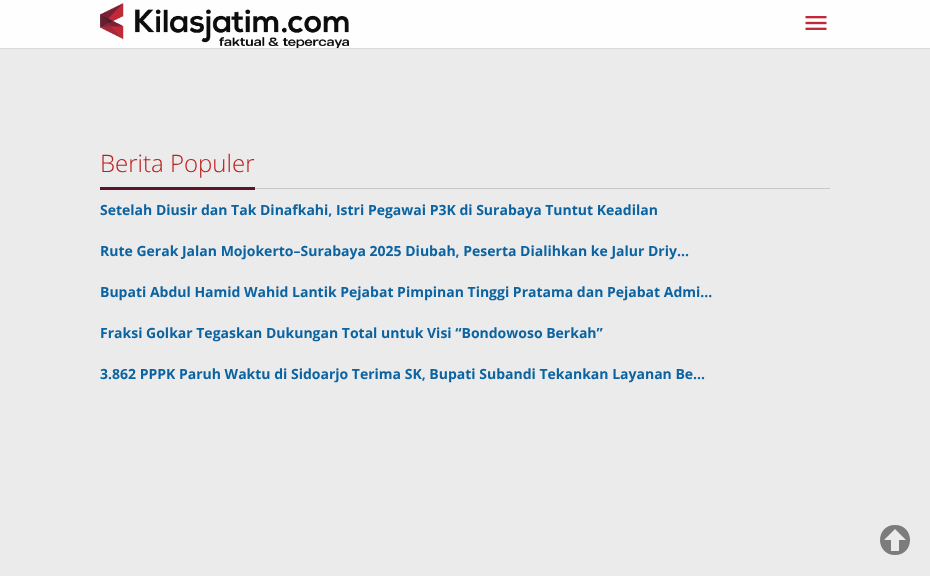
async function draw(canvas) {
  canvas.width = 930;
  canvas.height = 576;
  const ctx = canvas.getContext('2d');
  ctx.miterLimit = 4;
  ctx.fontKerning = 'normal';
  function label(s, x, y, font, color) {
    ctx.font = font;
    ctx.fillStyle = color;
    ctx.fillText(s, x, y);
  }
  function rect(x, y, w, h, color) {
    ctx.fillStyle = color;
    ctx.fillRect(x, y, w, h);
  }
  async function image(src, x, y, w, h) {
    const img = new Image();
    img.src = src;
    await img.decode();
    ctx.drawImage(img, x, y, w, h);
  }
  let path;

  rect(0, 0, 930, 576, '#ebebeb');
  rect(0, 0, 930, 48, '#fefefe');
  rect(0, 48, 930, 1, '#dadada');
  await image('assets/img1.png', 100, 3, 249, 45);
  await image('assets/img2.png', 805, 16, 22, 14);
  rect(255, 188, 575, 1, '#c8c8c8');
  rect(100, 187, 155, 3, '#601227');
  label('Berita Populer', 100, 172, '300 24px Open Sans', '#b9201f');
  label('Setelah Diusir dan Tak Dinafkahi, Istri Pegawai P3K di Surabaya Tuntut Keadilan', 100, 215, 'bold 14px Open Sans', '#0b63a1');
  label('Rute Gerak Jalan Mojokerto–Surabaya 2025 Diubah, Peserta Dialihkan ke Jalur Driy…', 100, 256, 'bold 14px Open Sans', '#0b63a1');
  label('Bupati Abdul Hamid Wahid Lantik Pejabat Pimpinan Tinggi Pratama dan Pejabat Admi…', 100, 297, 'bold 14px Open Sans', '#0b63a1');
  label('Fraksi Golkar Tegaskan Dukungan Total untuk Visi “Bondowoso Berkah”', 100, 338, 'bold 14px Open Sans', '#0b63a1');
  label('3.862 PPPK Paruh Waktu di Sidoarjo Terima SK, Bupati Subandi Tekankan Layanan Be…', 100, 379, 'bold 14px Open Sans', '#0b63a1');
  ctx.fillStyle = '#7c7c7d';
  path = new Path2D('M895 525C875 525 875 555 895 555C915 555 915 525 895 525ZM895 529L906 540H899V551H891V540H884Z');
  ctx.fill(path);
}

draw(document.querySelector('canvas'));
